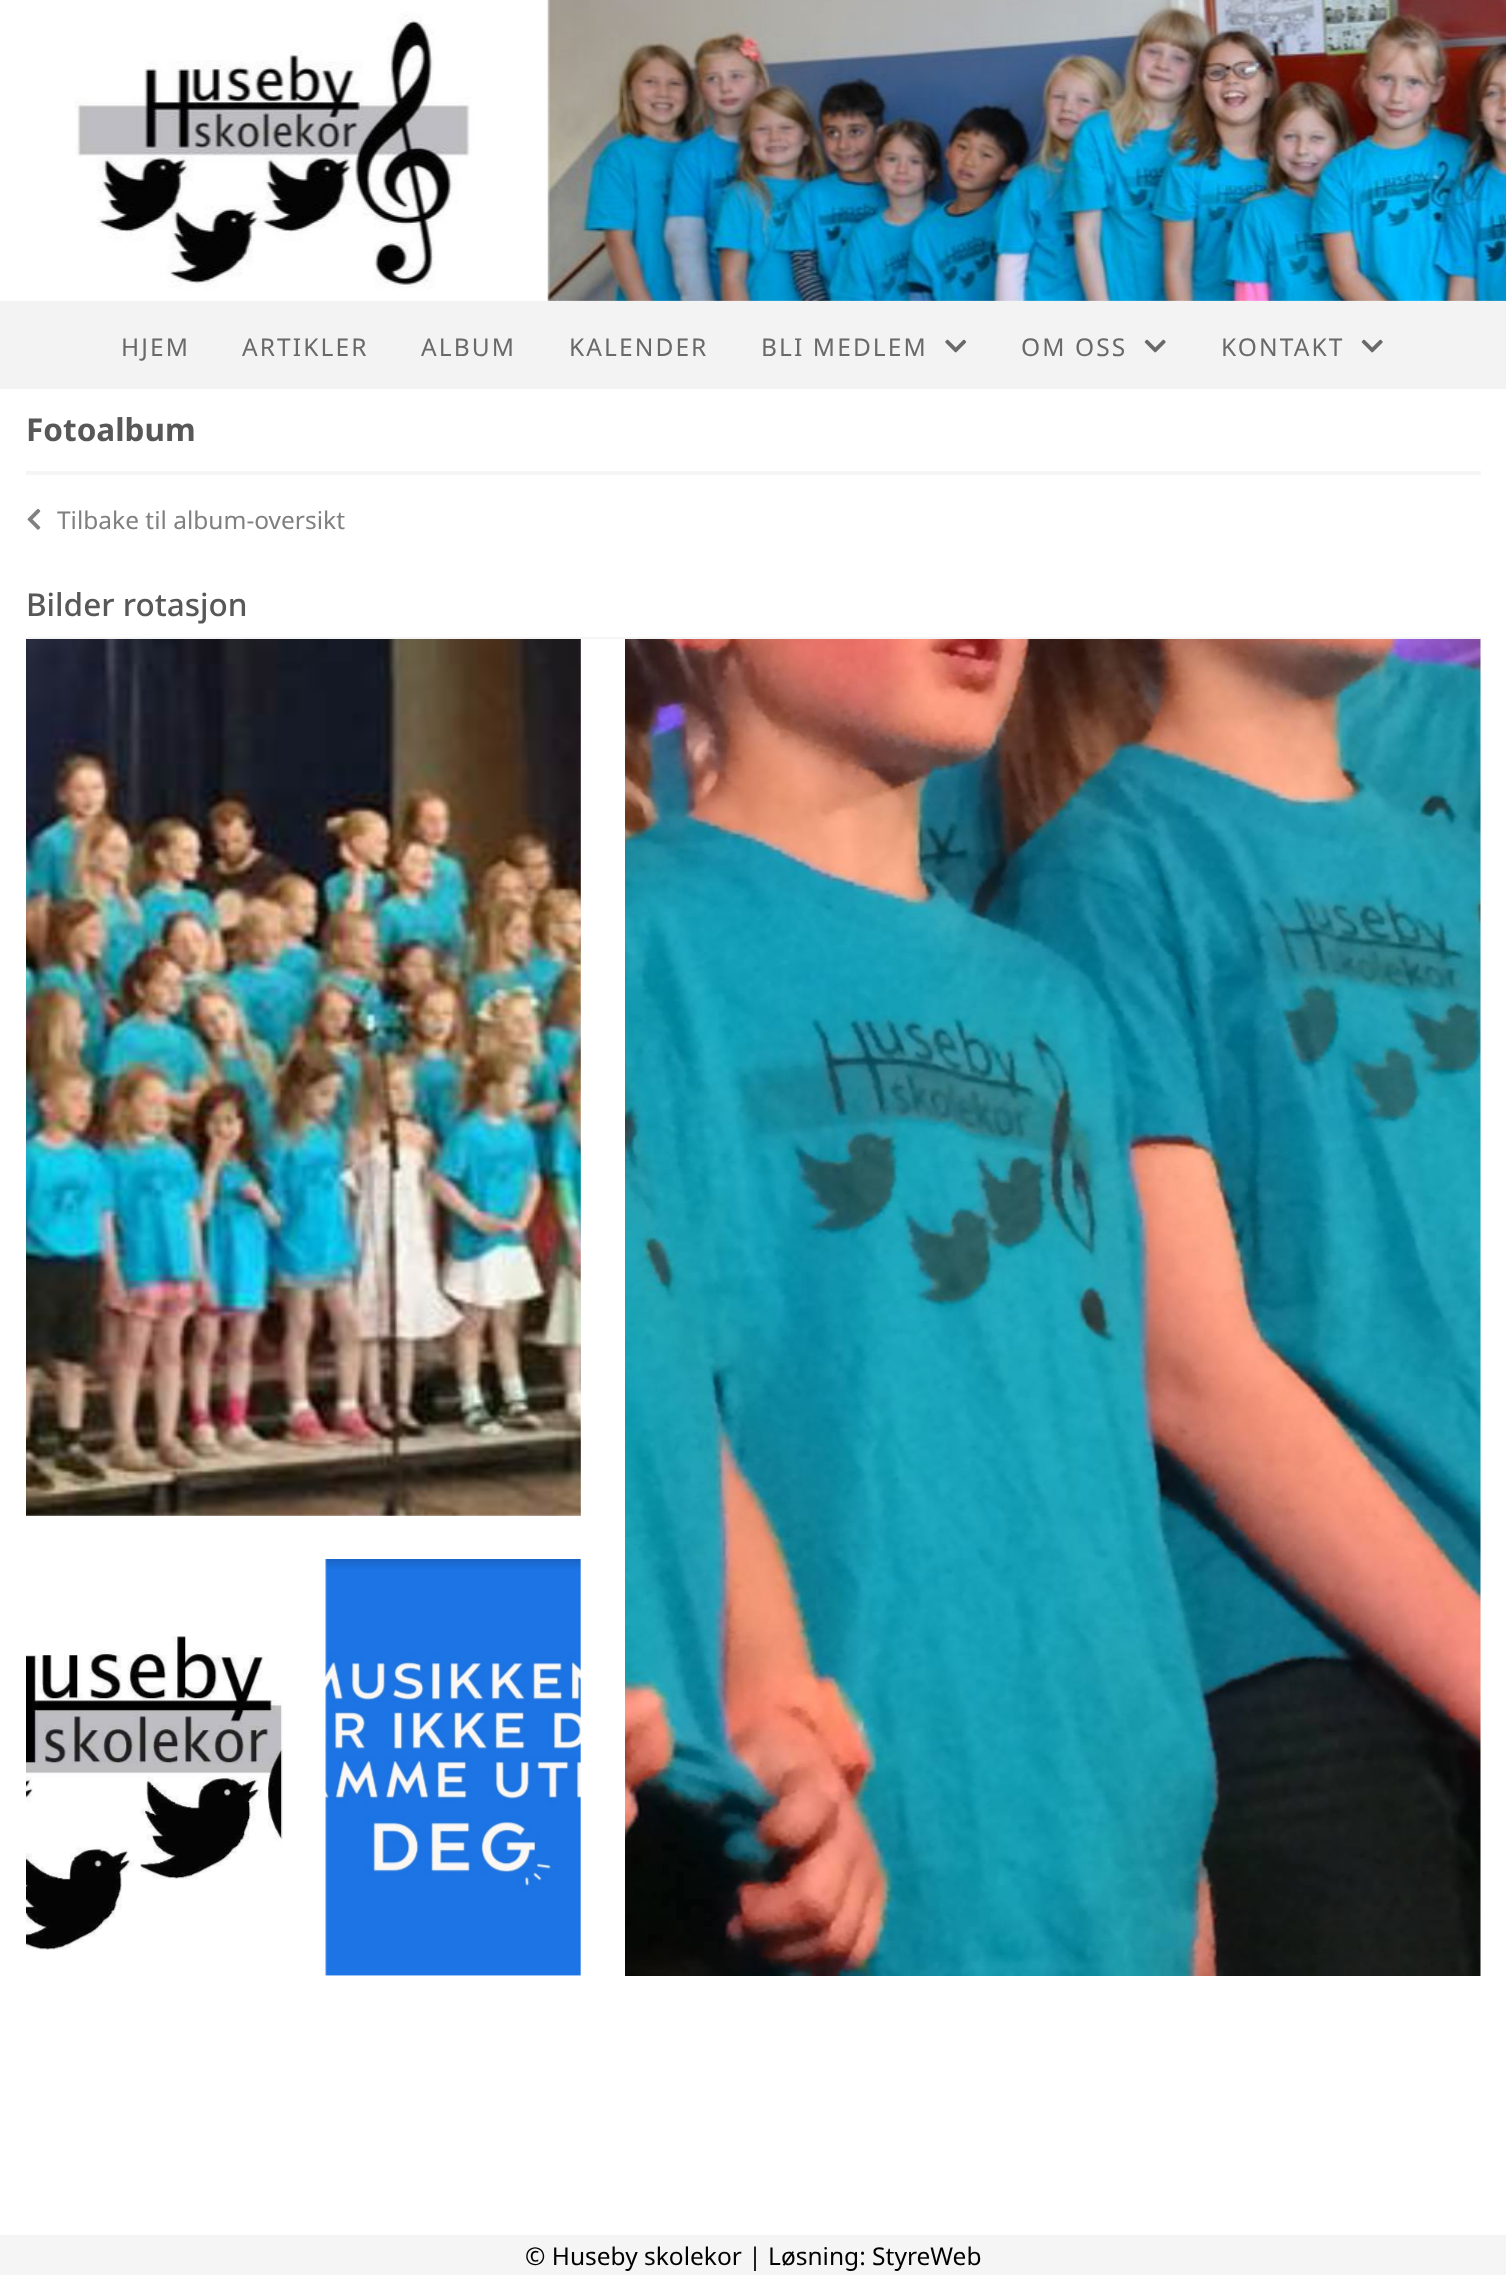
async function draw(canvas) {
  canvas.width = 1506;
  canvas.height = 2275;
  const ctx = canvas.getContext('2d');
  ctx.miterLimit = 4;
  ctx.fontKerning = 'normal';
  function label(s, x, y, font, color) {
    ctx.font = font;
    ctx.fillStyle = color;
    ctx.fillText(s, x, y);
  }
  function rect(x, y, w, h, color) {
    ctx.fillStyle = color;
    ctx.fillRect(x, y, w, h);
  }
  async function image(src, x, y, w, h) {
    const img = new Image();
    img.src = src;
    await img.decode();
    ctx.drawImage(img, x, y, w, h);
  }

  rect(0, 0, 1506, 2275, '#fff');
  await image('assets/img1.png', 75, 0, 1431, 301);
  rect(0, 301, 1506, 88, '#f3f3f3');
  ctx.letterSpacing = '2.1px';
  label('HJEM', 121, 356, '24.5px Noto Sans', '#696969');
  label('ARTIKLER', 242, 356, '24.5px Noto Sans', '#696969');
  label('ALBUM', 421, 356, '24.5px Noto Sans', '#696969');
  label('KALENDER', 569, 356, '24.5px Noto Sans', '#696969');
  label('BLI MEDLEM', 761, 356, '24.5px Noto Sans', '#696969');
  await image('assets/img2.png', 945, 339, 22, 14);
  label('OM OSS', 1021, 356, '24.5px Noto Sans', '#696969');
  await image('assets/img3.png', 1144, 339, 22, 14);
  label('KONTAKT', 1221, 356, '24.5px Noto Sans', '#696969');
  await image('assets/img3.png', 1361, 339, 22, 14);
  rect(26, 471, 1455, 4, '#f5f5f5');
  ctx.letterSpacing = '0px';
  label('Fotoalbum', 26, 441, 'bold 31.5px Noto Sans', '#585858');
  await image('assets/img4.png', 27, 508, 14, 22);
  label('Tilbake til album-oversikt', 57, 529, '24.5px Noto Sans', '#808080');
  rect(26, 637, 1455, 2, '#f5f5f5');
  label('Bilder rotasjon', 26, 616, '500 31.5px Noto Sans', '#585858');
  await image('assets/img5.png', 26, 639, 555, 877);
  await image('assets/img6.png', 625, 639, 856, 1337);
  await image('assets/img7.png', 26, 1636, 257, 314);
  await image('assets/img8.png', 325, 1559, 256, 417);
  rect(0, 2235, 1506, 40, '#f5f5f5');
  label('© Huseby skolekor | Løsning: StyreWeb', 525, 2265, '24.5px Noto Sans', '#000');
}

draw(document.querySelector('canvas'));
